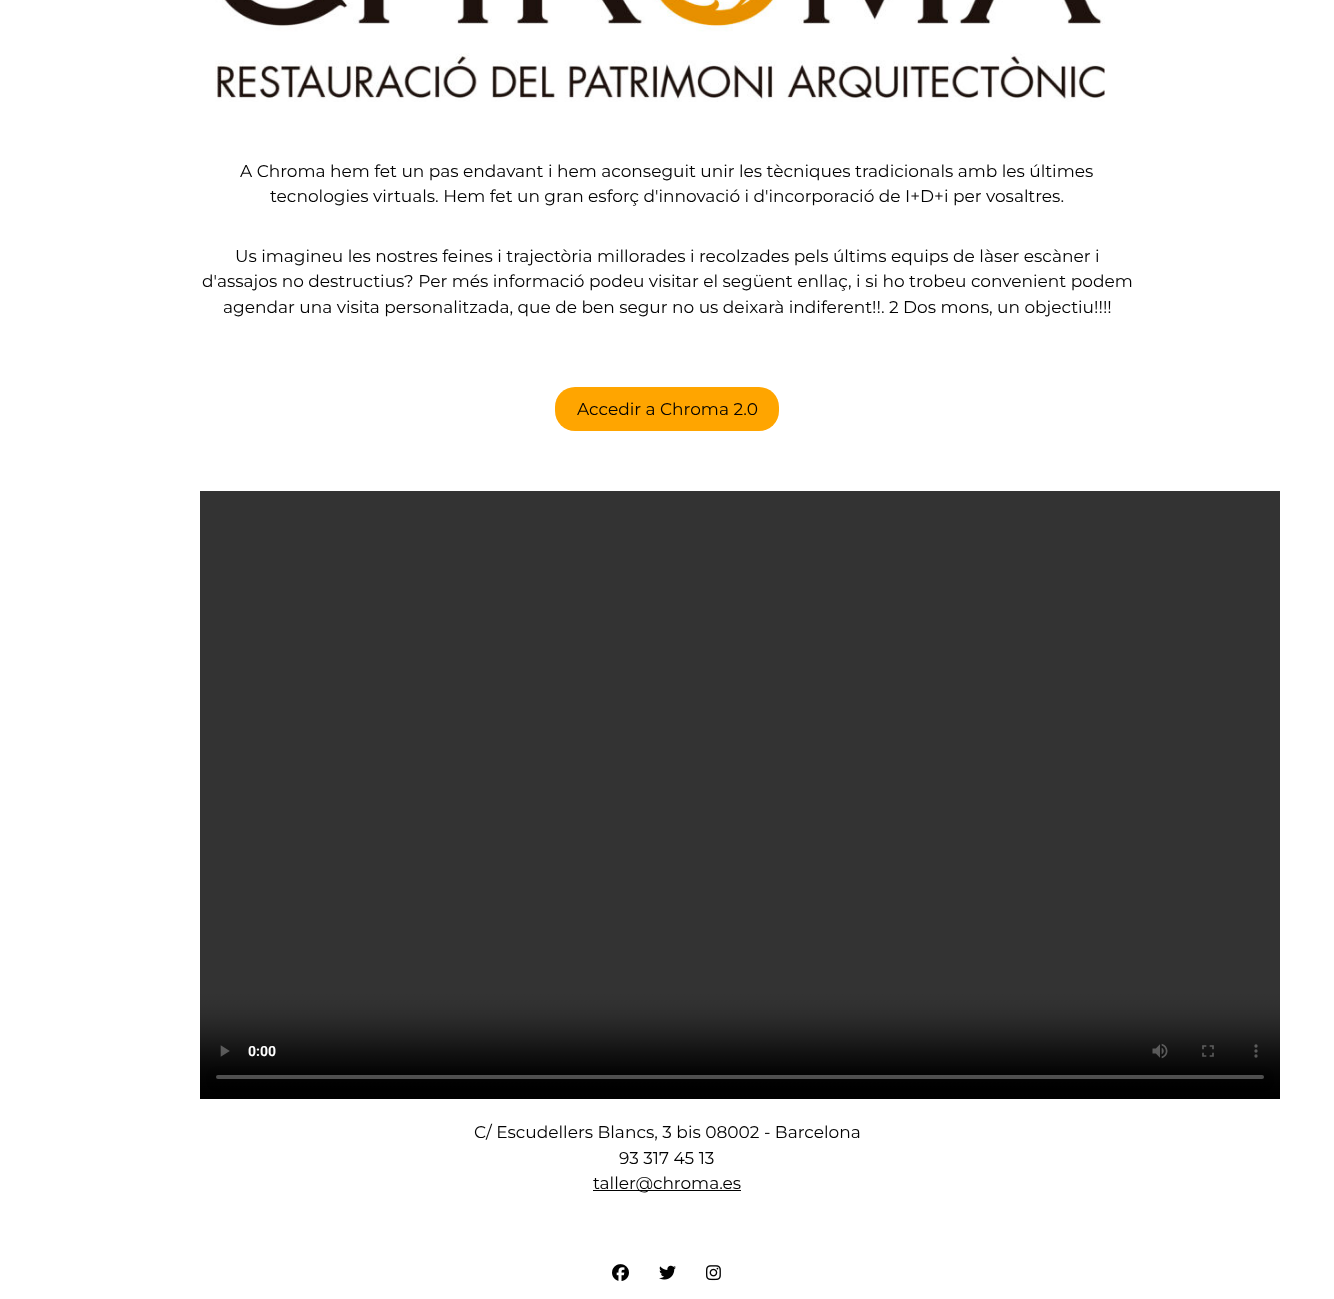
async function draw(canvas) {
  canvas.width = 1334;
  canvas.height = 1299;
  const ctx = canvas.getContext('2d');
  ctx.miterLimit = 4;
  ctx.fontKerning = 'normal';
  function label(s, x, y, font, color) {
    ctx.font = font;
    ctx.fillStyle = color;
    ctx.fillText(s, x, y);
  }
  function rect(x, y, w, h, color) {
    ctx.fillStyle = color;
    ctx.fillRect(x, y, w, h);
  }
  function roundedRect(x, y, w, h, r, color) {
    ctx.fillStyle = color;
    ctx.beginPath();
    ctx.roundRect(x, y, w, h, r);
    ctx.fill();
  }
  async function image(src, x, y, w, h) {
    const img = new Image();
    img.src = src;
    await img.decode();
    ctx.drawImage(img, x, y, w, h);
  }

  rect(0, 0, 1334, 1299, '#fff');
  await image('assets/img1.png', 215, 0, 890, 102);
  label('A Chroma hem fet un pas endavant i hem aconseguit unir les tècniques tradicionals amb les últimes', 240, 177, '17px Montserrat', '#020202');
  label('tecnologies virtuals. Hem fet un gran esforç d\'innovació i d\'incorporació de I+D+i per vosaltres.', 270, 202, '17px Montserrat', '#020202');
  label('Us imagineu les nostres feines i trajectòria millorades i recolzades pels últims equips de làser escàner i', 235, 262, '17px Montserrat', '#020202');
  label('d\'assajos no destructius? Per més informació podeu visitar el següent enllaç, i si ho trobeu convenient podem', 202, 287, '17px Montserrat', '#020202');
  label('agendar una visita personalitzada, que de ben segur no us deixarà indiferent!!. 2 Dos mons, un objectiu!!!!', 223, 313, '17px Montserrat', '#020202');
  roundedRect(555, 387, 224, 44, 20, '#ffa500');
  label('Accedir a Chroma 2.0', 577, 415, '17px Montserrat', '#020202');
  await image('assets/img2.png', 200, 491, 1080, 608);
  label('C/ Escudellers Blancs, 3 bis 08002 - Barcelona', 474, 1138, '17px Montserrat', '#020202');
  label('93 317 45 13', 619, 1164, '17px Montserrat', '#020202');
  rect(593, 1190, 148, 1, '#020202');
  label('taller@chroma.es', 593, 1189, '17px Montserrat', '#020202');
  await image('assets/img3.png', 612, 1264, 17, 17);
  await image('assets/img4.png', 659, 1265, 17, 15);
  await image('assets/img5.png', 706, 1265, 15, 16);
}

draw(document.querySelector('canvas'));
